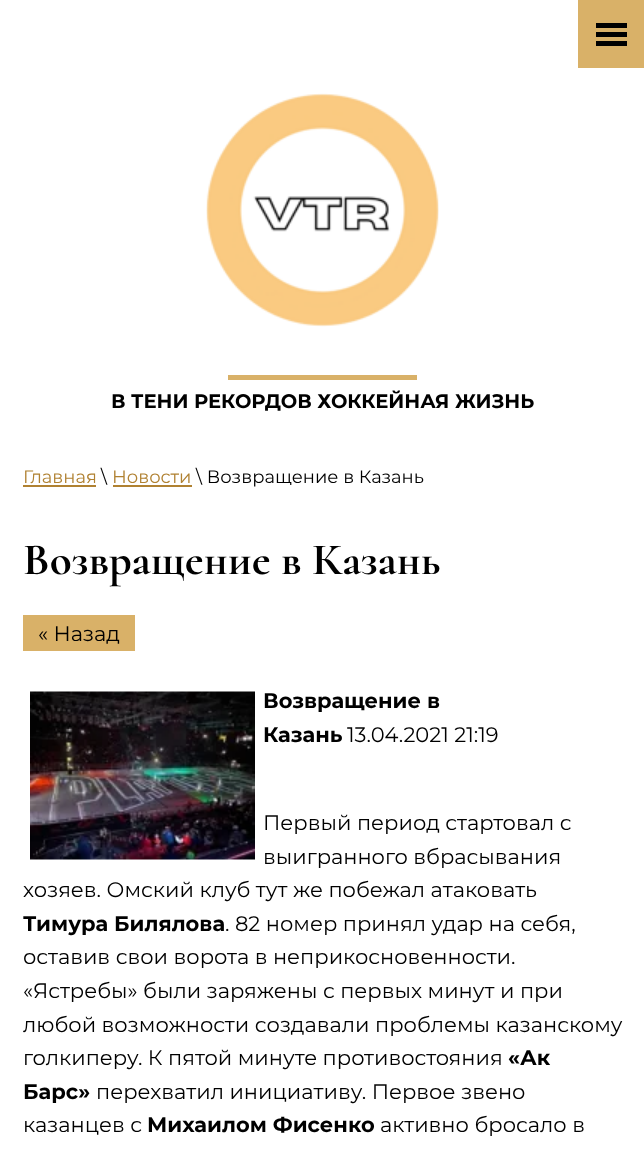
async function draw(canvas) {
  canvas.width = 644;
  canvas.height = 1150;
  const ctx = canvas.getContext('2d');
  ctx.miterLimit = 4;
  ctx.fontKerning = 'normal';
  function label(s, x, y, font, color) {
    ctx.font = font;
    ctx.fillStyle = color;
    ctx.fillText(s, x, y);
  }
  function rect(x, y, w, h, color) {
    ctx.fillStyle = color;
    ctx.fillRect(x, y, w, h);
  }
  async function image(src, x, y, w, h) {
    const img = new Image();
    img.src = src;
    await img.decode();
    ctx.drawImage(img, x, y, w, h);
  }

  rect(0, 0, 644, 1150, '#fff');
  rect(578, 0, 66, 68, '#d9b168');
  rect(596, 23, 31, 5, '#000');
  rect(596, 32, 31, 5, '#000');
  rect(596, 41, 31, 5, '#000');
  await image('assets/img1.png', 206, 93, 233, 234);
  rect(228, 375, 189, 5, '#d9b168');
  label('В ТЕНИ РЕКОРДОВ ХОККЕЙНАЯ ЖИЗНЬ', 111, 408, 'bold 19.5px Montserrat', '#000');
  label('Главная', 23, 483, '18px Montserrat', '#b08131');
  rect(23, 485, 73, 2, '#b08131');
  label('\\', 101, 483, '18px Montserrat', '#000');
  label('Новости', 112, 483, '18px Montserrat', '#b08131');
  rect(113, 485, 79, 2, '#b08131');
  label('\\ Возвращение в Казань', 196, 483, '18px Montserrat', '#000');
  label('Возвращение в Казань', 23, 574, 'bold 45px Cormorant', '#000');
  rect(23, 615, 112, 36, '#d9b168');
  label('« Назад', 38, 641, '21px Montserrat', '#000');
  await image('assets/img2.png', 30, 691, 225, 169);
  label('Возвращение в', 263, 708, 'bold 21px Montserrat', '#000');
  label('Казань', 263, 742, 'bold 21px Montserrat', '#000');
  label('13.04.2021 21:19', 347, 742, '21px Montserrat', '#000');
  label('Первый период стартовал с', 263, 830, '21px Montserrat', '#000');
  label('выигранного вбрасывания', 263, 864, '21px Montserrat', '#000');
  label('хозяев. Омский клуб тут же побежал атаковать', 23, 897, '21px Montserrat', '#000');
  label('Тимура Билялова', 23, 931, 'bold 21px Montserrat', '#000');
  label('. 82 номер принял удар на себя,', 225, 931, '21px Montserrat', '#000');
  label('оставив свои ворота в неприкосновенности.', 23, 964, '21px Montserrat', '#000');
  label('«Ястребы» были заряжены с первых минут и при', 23, 998, '21px Montserrat', '#000');
  label('любой возможности создавали проблемы казанскому', 23, 1032, '21px Montserrat', '#000');
  label('голкиперу. К пятой минуте противостояния', 23, 1065, '21px Montserrat', '#000');
  label('«Ак', 508, 1065, 'bold 21px Montserrat', '#000');
  label('Барс»', 23, 1099, 'bold 21px Montserrat', '#000');
  label('перехватил инициативу. Первое звено', 96, 1099, '21px Montserrat', '#000');
  label('казанцев с', 23, 1132, '21px Montserrat', '#000');
  label('Михаилом Фисенко', 147, 1132, 'bold 21px Montserrat', '#000');
  label('активно бросало в', 380, 1132, '21px Montserrat', '#000');
}

draw(document.querySelector('canvas'));
